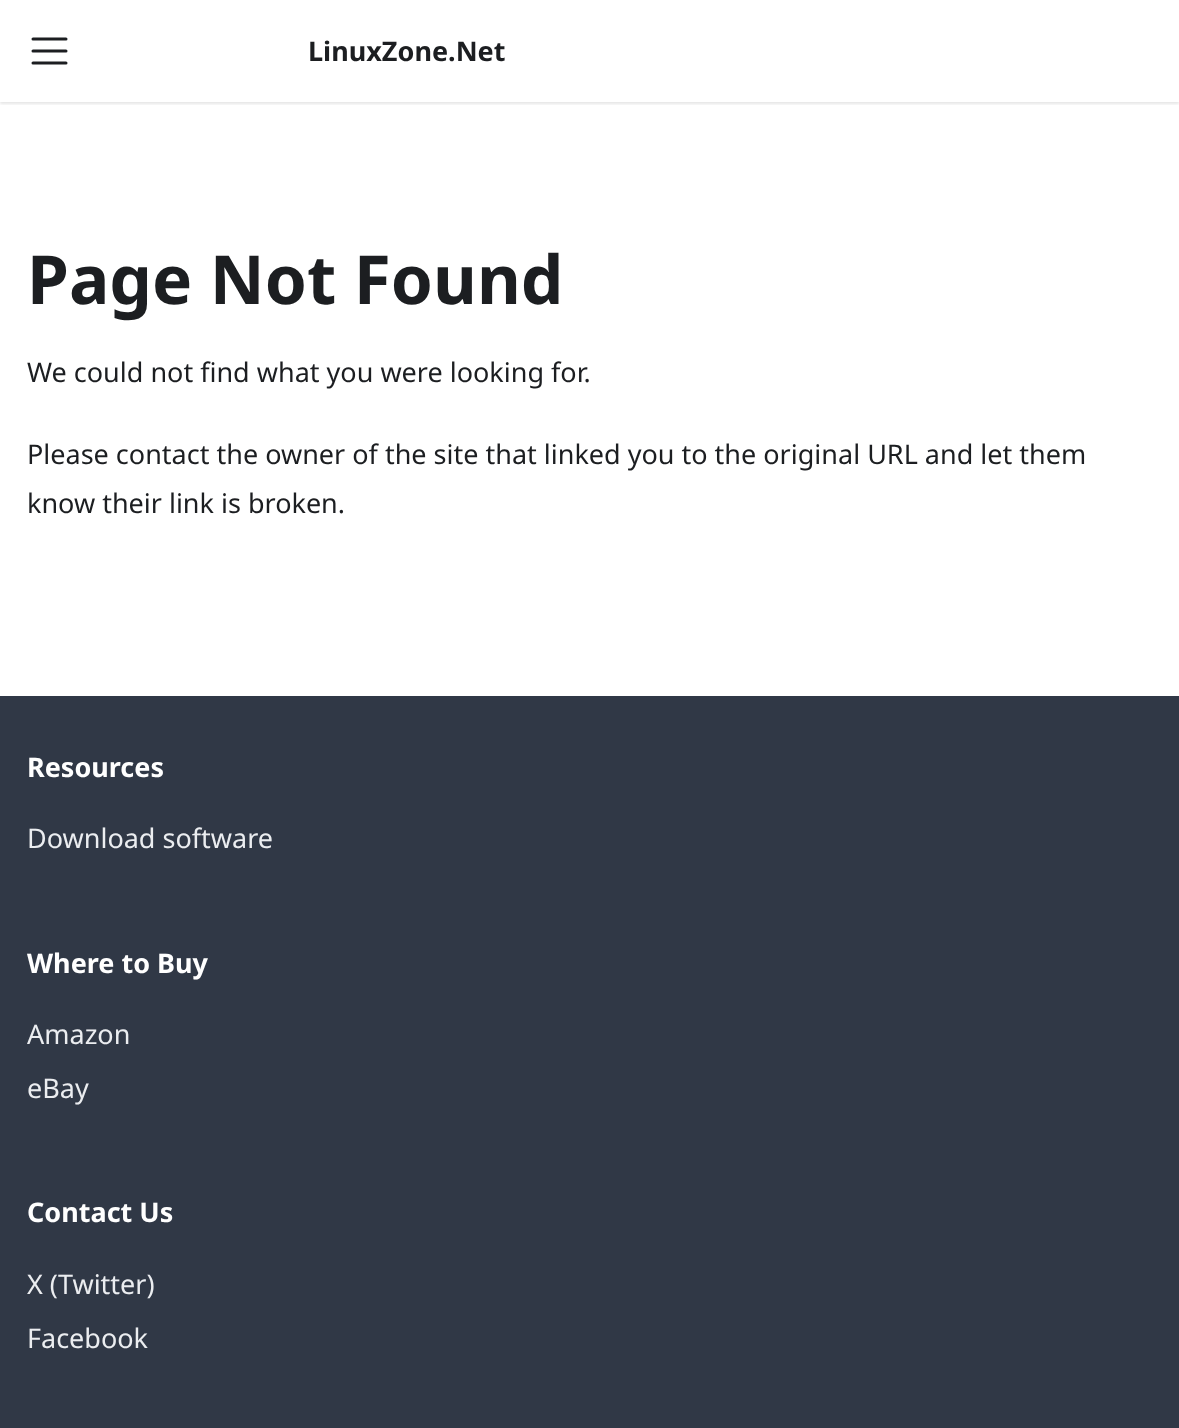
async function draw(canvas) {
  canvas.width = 1179;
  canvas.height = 1428;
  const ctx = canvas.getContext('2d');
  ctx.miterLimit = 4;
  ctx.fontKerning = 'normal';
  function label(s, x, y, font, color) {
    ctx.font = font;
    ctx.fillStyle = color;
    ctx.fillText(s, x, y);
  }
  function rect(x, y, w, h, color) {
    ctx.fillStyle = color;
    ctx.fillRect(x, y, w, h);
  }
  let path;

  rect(0, 0, 1179, 1428, '#fff');
  ctx.save();
  ctx.beginPath();
  ctx.rect(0, 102, 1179, 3);
  ctx.clip();
  ctx.fillStyle = '#0000001a';
  ctx.filter = 'blur(1.5px)';
  ctx.beginPath();
  ctx.rect(0, 2, 1179, 102);
  ctx.fill();
  ctx.filter = 'none';
  ctx.restore();
  path = new Path2D('M33 39H66M33 51H66M33 63H66');
  ctx.strokeStyle = '#1c1e21';
  ctx.lineWidth = 3;
  ctx.lineCap = 'round';
  ctx.stroke(path);
  label('LinuxZone.Net', 308, 61, 'bold 27px Noto Sans', '#1c1e21');
  label('Page Not Found', 27, 304, 'bold 67.5px Noto Sans', '#1c1e21');
  label('We could not find what you were looking for.', 27, 382, '27px Noto Sans', '#1c1e21');
  label('Please contact the owner of the site that linked you to the original URL and let them', 27, 464, '27px Noto Sans', '#1c1e21');
  label('know their link is broken.', 27, 513, '27px Noto Sans', '#1c1e21');
  rect(0, 696, 1179, 732, '#303846');
  label('Resources', 27, 777, 'bold 27px Noto Sans', '#fff');
  label('Download software', 27, 848, '27px Noto Sans', '#ebedf0');
  label('Where to Buy', 27, 973, 'bold 27px Noto Sans', '#fff');
  label('Amazon', 27, 1044, '27px Noto Sans', '#ebedf0');
  label('eBay', 27, 1098, '27px Noto Sans', '#ebedf0');
  label('Contact Us', 27, 1222, 'bold 27px Noto Sans', '#fff');
  label('X (Twitter)', 27, 1294, '27px Noto Sans', '#ebedf0');
  label('Facebook', 27, 1348, '27px Noto Sans', '#ebedf0');
}

draw(document.querySelector('canvas'));
